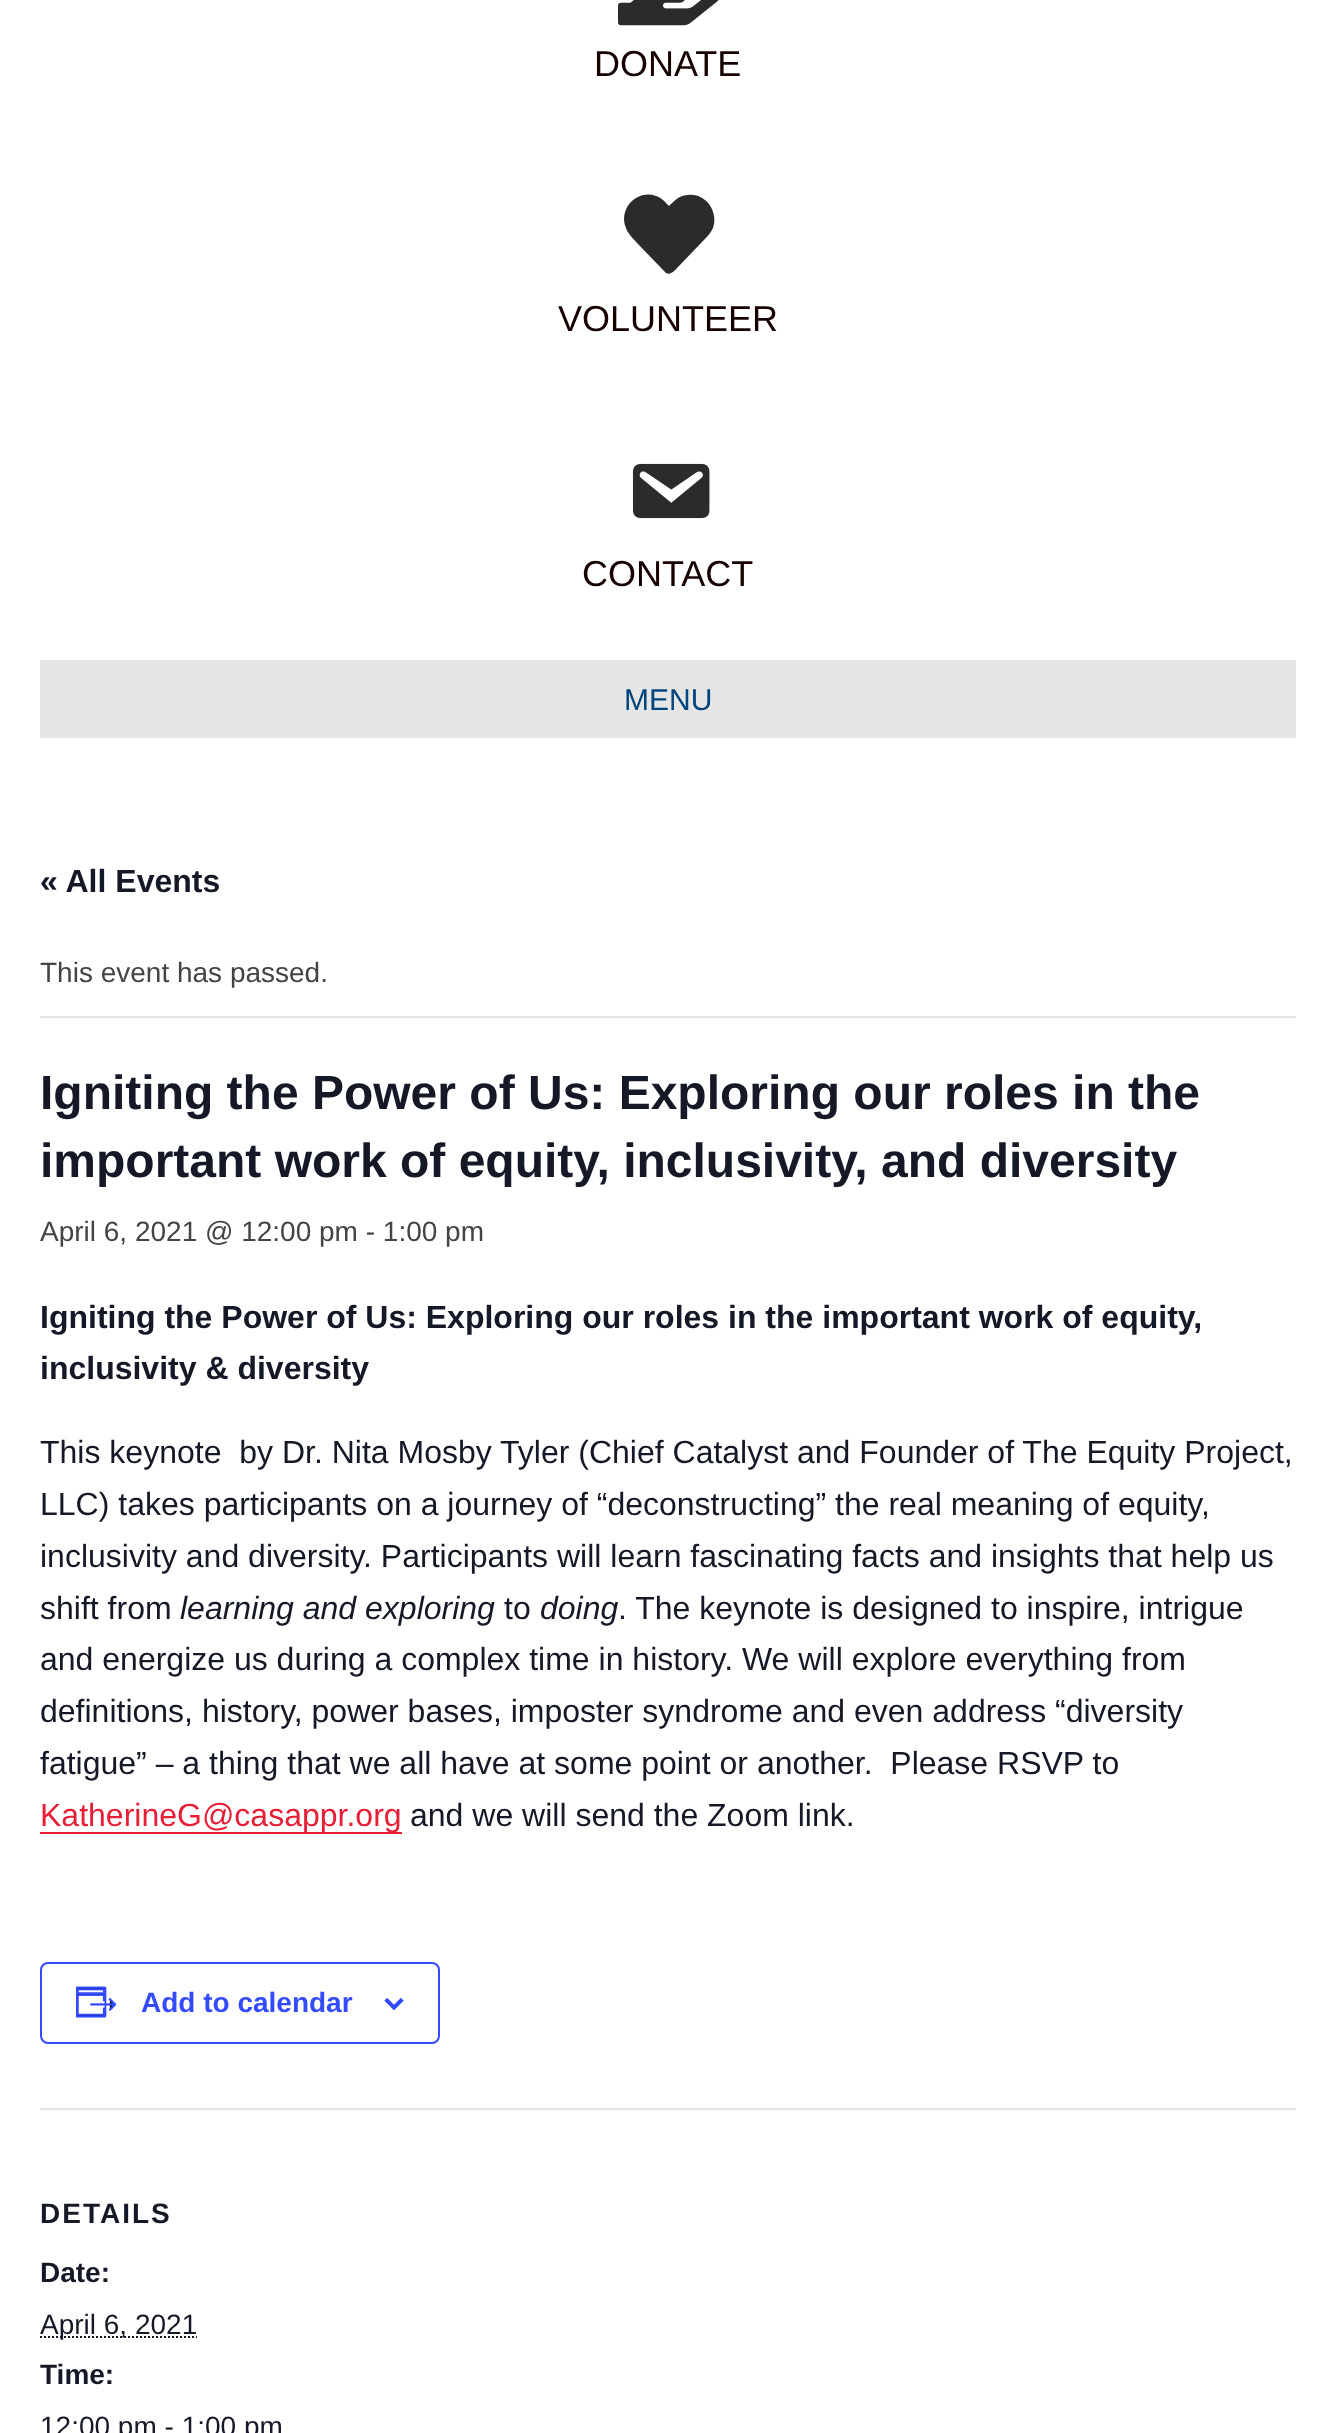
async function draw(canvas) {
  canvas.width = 1335;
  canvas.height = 2433;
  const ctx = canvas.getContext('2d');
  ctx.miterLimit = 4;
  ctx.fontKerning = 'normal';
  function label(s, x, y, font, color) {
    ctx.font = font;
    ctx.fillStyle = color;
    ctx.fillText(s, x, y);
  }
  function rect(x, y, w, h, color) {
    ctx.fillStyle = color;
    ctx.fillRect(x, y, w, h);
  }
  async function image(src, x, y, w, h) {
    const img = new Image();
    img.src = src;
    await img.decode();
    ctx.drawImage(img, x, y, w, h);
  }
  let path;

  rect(0, 0, 1335, 2433, '#fff');
  await image('assets/img1.png', 618, 0, 101, 26);
  label('DONATE', 594, 76, '36px Liberation Sans', '#160000');
  ctx.fillStyle = '#2b2b2b';
  path = new Path2D('M705 200C710 204 713 210 714 216C716 228 710 234 701 243L679 266C676 269 671 276 666 273L637 243C633 238 628 234 626 228C618 209 637 189 656 196C662 198 665 202 669 206C672 203 675 200 678 198C687 193 698 194 705 200Z');
  ctx.fill(path);
  label('VOLUNTEER', 558, 331, '36px Liberation Sans', '#160000');
  await image('assets/img2.png', 632, 463, 78, 56);
  label('CONTACT', 582, 586, '36px Liberation Sans', '#160000');
  rect(40, 660, 1256, 78, '#e6e6e6');
  label('MENU', 624, 710, '30px Liberation Sans', '#00457c');
  label('« All Events', 40, 892, 'bold 32px Liberation Sans', '#141827');
  rect(40, 1016, 1256, 2, '#e4e4e4');
  label('This event has passed.', 40, 982, '28px Liberation Sans', '#444');
  label('Igniting the Power of Us: Exploring our roles in the', 40, 1109, 'bold 48px Liberation Sans', '#141827');
  label('important work of equity, inclusivity, and diversity', 40, 1177, 'bold 48px Liberation Sans', '#141827');
  label('April 6, 2021 @ 12:00 pm - 1:00 pm', 40, 1241, '28px Liberation Sans', '#444');
  label('Igniting the Power of Us: Exploring our roles in the important work of equity,', 40, 1328, 'bold 32px Liberation Sans', '#141827');
  label('inclusivity & diversity', 40, 1379, 'bold 32px Liberation Sans', '#141827');
  label('This keynote  by Dr. Nita Mosby Tyler (Chief Catalyst and Founder of The Equity Project,', 40, 1463, '32px Liberation Sans', '#141827');
  label('LLC) takes participants on a journey of “deconstructing” the real meaning of equity,', 40, 1515, '32px Liberation Sans', '#141827');
  label('inclusivity and diversity. Participants will learn fascinating facts and insights that help us', 40, 1567, '32px Liberation Sans', '#141827');
  label('shift from', 40, 1619, '32px Liberation Sans', '#141827');
  label('learning and exploring', 180, 1619, 'italic 32px Liberation Sans', '#141827');
  label('to', 504, 1619, '32px Liberation Sans', '#141827');
  label('doing', 540, 1619, 'italic 32px Liberation Sans', '#141827');
  label('. The keynote is designed to inspire, intrigue', 618, 1619, '32px Liberation Sans', '#141827');
  label('and energize us during a complex time in history. We will explore everything from', 40, 1670, '32px Liberation Sans', '#141827');
  label('definitions, history, power bases, imposter syndrome and even address “diversity', 40, 1722, '32px Liberation Sans', '#141827');
  label('fatigue” – a thing that we all have at some point or another.  Please RSVP to', 40, 1774, '32px Liberation Sans', '#141827');
  rect(40, 1832, 362, 2, '#e71e36');
  label('KatherineG@casappr.org', 40, 1826, '32px Liberation Sans', '#e71e36');
  label('and we will send the Zoom link.', 410, 1826, '32px Liberation Sans', '#141827');
  ctx.beginPath();
  ctx.roundRect(41, 1963, 398, 80, 7);
  ctx.strokeStyle = '#334aff';
  ctx.lineWidth = 2;
  ctx.stroke();
  await image('assets/img3.png', 76, 1986, 41, 32);
  label('Add to calendar', 141, 2012, 'bold 28px Liberation Sans', '#334aff');
  await image('assets/img4.png', 384, 1998, 20, 12);
  rect(40, 2108, 1256, 2, '#e4e4e4');
  ctx.letterSpacing = '2px';
  label('DETAILS', 40, 2223, 'bold 28px Liberation Sans', '#141827');
  ctx.letterSpacing = '0px';
  label('Date:', 40, 2282, 'bold 28px Liberation Sans', '#141827');
  path = new Path2D('M40 2337H197');
  ctx.strokeStyle = '#141827';
  ctx.setLineDash([2, 2]);
  ctx.stroke(path);
  label('April 6, 2021', 40, 2334, '28px Liberation Sans', '#141827');
  label('Time:', 40, 2384, 'bold 28px Liberation Sans', '#141827');
  label('12:00 pm - 1:00 pm', 40, 2436, '28px Liberation Sans', '#141827');
}

draw(document.querySelector('canvas'));
